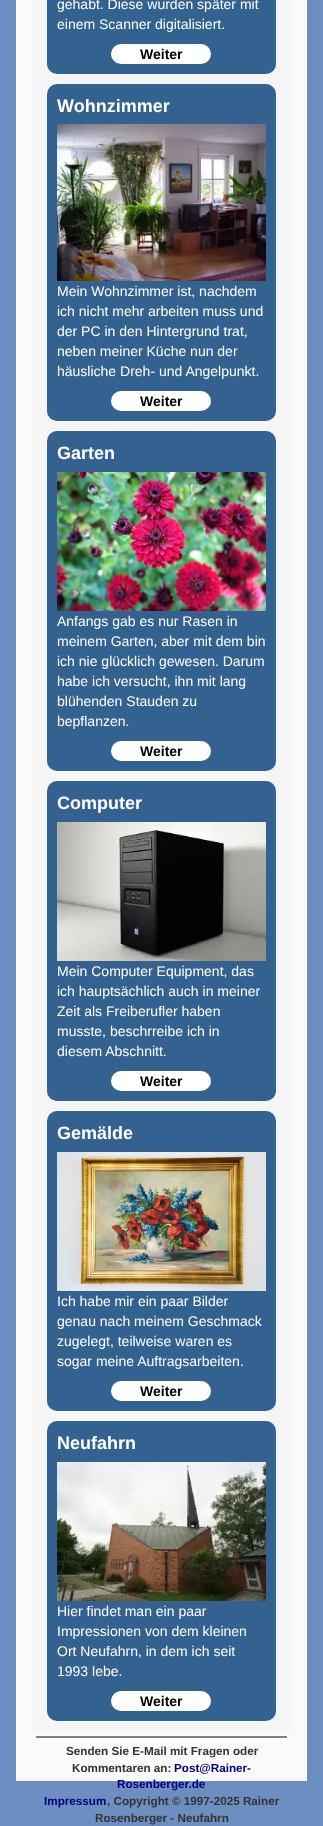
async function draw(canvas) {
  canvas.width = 323;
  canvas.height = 1826;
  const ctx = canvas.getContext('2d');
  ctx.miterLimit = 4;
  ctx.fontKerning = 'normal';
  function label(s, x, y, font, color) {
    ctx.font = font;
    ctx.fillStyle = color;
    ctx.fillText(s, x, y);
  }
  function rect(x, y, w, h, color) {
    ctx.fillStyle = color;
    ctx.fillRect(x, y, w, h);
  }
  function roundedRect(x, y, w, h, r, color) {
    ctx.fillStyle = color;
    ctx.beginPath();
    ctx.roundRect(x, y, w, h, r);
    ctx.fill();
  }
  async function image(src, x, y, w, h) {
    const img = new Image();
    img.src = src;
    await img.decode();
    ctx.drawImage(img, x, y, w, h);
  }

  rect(0, 0, 323, 1826, '#6c8ec0');
  rect(16, 0, 291, 1781, '#fafafa');
  rect(31, 0, 261, 1731, '#f5f5f5');
  roundedRect(47, -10, 229, 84, 10, '#336290');
  label('gehabt. Diese wurden später mit', 57, 9, '14px Liberation Sans', '#fff');
  label('einem Scanner digitalisiert.', 57, 29, '14px Liberation Sans', '#fff');
  roundedRect(111, 44, 100, 20, 10, '#fff');
  label('Weiter', 140, 59, 'bold 14px Liberation Sans', '#000');
  roundedRect(47, 84, 229, 337, 10, '#336290');
  label('Wohnzimmer', 57, 112, 'bold 18px Liberation Sans', '#fff');
  await image('assets/img1.png', 57, 124, 209, 157);
  label('Mein Wohnzimmer ist, nachdem', 57, 296, '14px Liberation Sans', '#fff');
  label('ich nicht mehr arbeiten muss und', 57, 316, '14px Liberation Sans', '#fff');
  label('der PC in den Hintergrund trat,', 57, 336, '14px Liberation Sans', '#fff');
  label('neben meiner Küche nun der', 57, 356, '14px Liberation Sans', '#fff');
  label('häusliche Dreh- und Angelpunkt.', 57, 376, '14px Liberation Sans', '#fff');
  roundedRect(111, 391, 100, 20, 10, '#fff');
  label('Weiter', 140, 406, 'bold 14px Liberation Sans', '#000');
  roundedRect(47, 431, 229, 340, 10, '#336290');
  label('Garten', 57, 459, 'bold 18px Liberation Sans', '#fff');
  await image('assets/img2.png', 57, 472, 209, 139);
  label('Anfangs gab es nur Rasen in', 57, 626, '14px Liberation Sans', '#fff');
  label('meinem Garten, aber mit dem bin', 57, 646, '14px Liberation Sans', '#fff');
  label('ich nie glücklich gewesen. Darum', 57, 666, '14px Liberation Sans', '#fff');
  label('habe ich versucht, ihn mit lang', 57, 686, '14px Liberation Sans', '#fff');
  label('blühenden Stauden zu', 57, 706, '14px Liberation Sans', '#fff');
  label('bepflanzen.', 57, 726, '14px Liberation Sans', '#fff');
  roundedRect(111, 741, 100, 20, 10, '#fff');
  label('Weiter', 140, 756, 'bold 14px Liberation Sans', '#000');
  roundedRect(47, 781, 229, 320, 10, '#336290');
  label('Computer', 57, 809, 'bold 18px Liberation Sans', '#fff');
  await image('assets/img3.png', 57, 822, 209, 139);
  label('Mein Computer Equipment, das', 57, 976, '14px Liberation Sans', '#fff');
  label('ich hauptsächlich auch in meiner', 57, 996, '14px Liberation Sans', '#fff');
  label('Zeit als Freiberufler haben', 57, 1016, '14px Liberation Sans', '#fff');
  label('musste, beschrreibe ich in', 57, 1036, '14px Liberation Sans', '#fff');
  label('diesem Abschnitt.', 57, 1056, '14px Liberation Sans', '#fff');
  roundedRect(111, 1071, 100, 20, 10, '#fff');
  label('Weiter', 140, 1086, 'bold 14px Liberation Sans', '#000');
  roundedRect(47, 1111, 229, 300, 10, '#336290');
  label('Gemälde', 57, 1139, 'bold 18px Liberation Sans', '#fff');
  await image('assets/img4.png', 57, 1152, 209, 139);
  label('Ich habe mir ein paar Bilder', 57, 1306, '14px Liberation Sans', '#fff');
  label('genau nach meinem Geschmack', 57, 1326, '14px Liberation Sans', '#fff');
  label('zugelegt, teilweise waren es', 57, 1346, '14px Liberation Sans', '#fff');
  label('sogar meine Auftragsarbeiten.', 57, 1366, '14px Liberation Sans', '#fff');
  roundedRect(111, 1381, 100, 20, 10, '#fff');
  label('Weiter', 140, 1396, 'bold 14px Liberation Sans', '#000');
  roundedRect(47, 1421, 229, 300, 10, '#336290');
  label('Neufahrn', 57, 1449, 'bold 18px Liberation Sans', '#fff');
  await image('assets/img5.png', 57, 1462, 209, 139);
  label('Hier findet man ein paar', 57, 1616, '14px Liberation Sans', '#fff');
  label('Impressionen von dem kleinen', 57, 1636, '14px Liberation Sans', '#fff');
  label('Ort Neufahrn, in dem ich seit', 57, 1656, '14px Liberation Sans', '#fff');
  label('1993 lebe.', 57, 1676, '14px Liberation Sans', '#fff');
  roundedRect(111, 1691, 100, 20, 10, '#fff');
  label('Weiter', 140, 1706, 'bold 14px Liberation Sans', '#000');
  rect(36, 1736, 251, 2, '#808080');
  label('Senden Sie E-Mail mit Fragen oder', 66, 1755, 'bold 11.7px Liberation Sans', '#333');
  label('Kommentaren an:', 72, 1772, 'bold 11.7px Liberation Sans', '#333');
  label('Post@Rainer-', 174, 1772, 'bold 11.7px Liberation Sans', '#000080');
  label('Rosenberger.de', 117, 1788, 'bold 11.7px Liberation Sans', '#000080');
  label('Impressum', 44, 1805, 'bold 11.7px Liberation Sans', '#000080');
  label(', Copyright © 1997-2025 Rainer', 107, 1805, 'bold 11.7px Liberation Sans', '#333');
  label('Rosenberger - Neufahrn', 95, 1822, 'bold 11.7px Liberation Sans', '#333');
}

draw(document.querySelector('canvas'));
